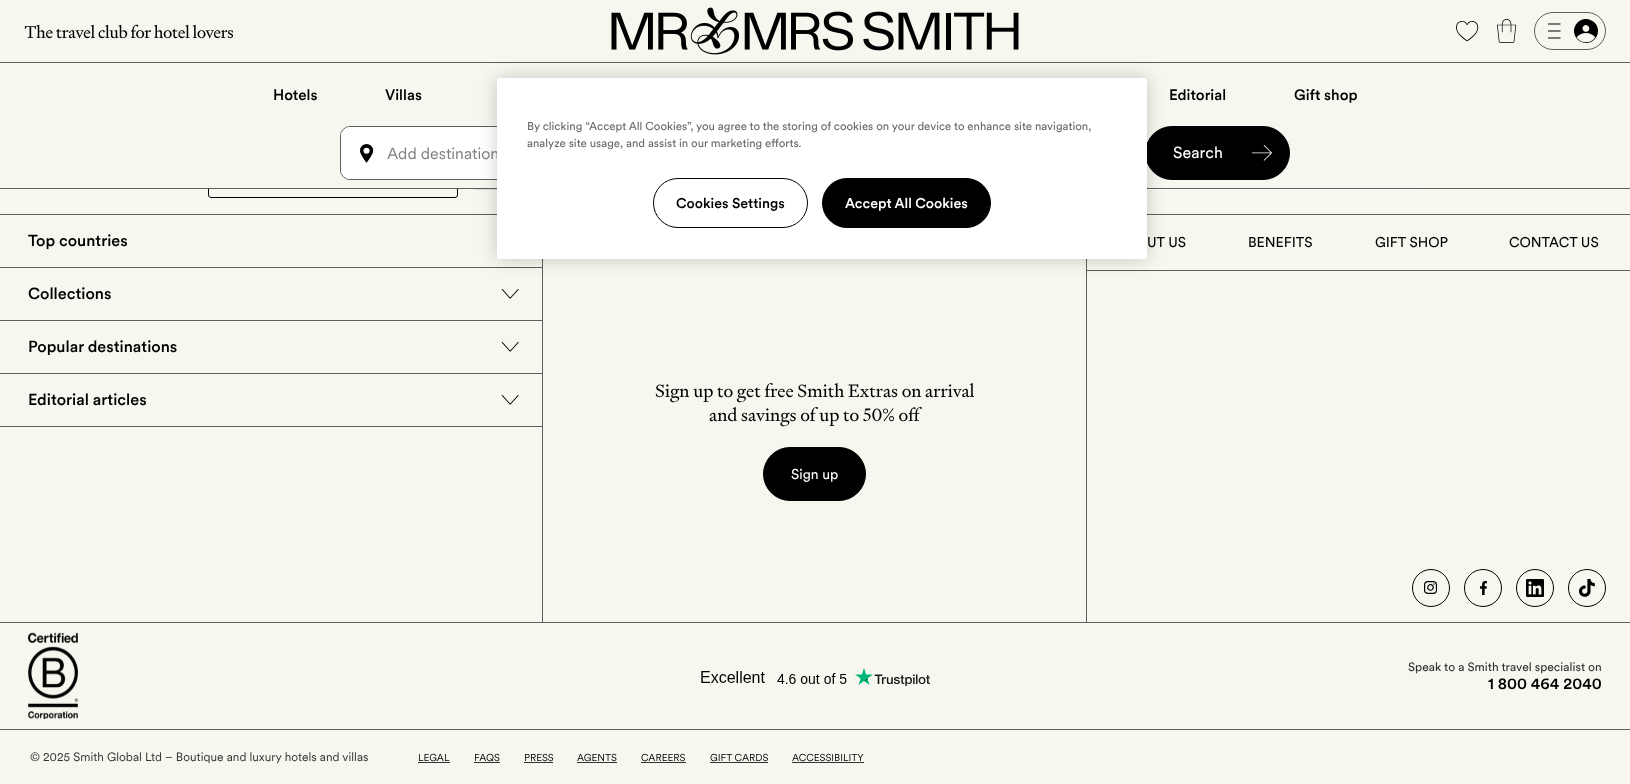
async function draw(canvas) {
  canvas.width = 1630;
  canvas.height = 784;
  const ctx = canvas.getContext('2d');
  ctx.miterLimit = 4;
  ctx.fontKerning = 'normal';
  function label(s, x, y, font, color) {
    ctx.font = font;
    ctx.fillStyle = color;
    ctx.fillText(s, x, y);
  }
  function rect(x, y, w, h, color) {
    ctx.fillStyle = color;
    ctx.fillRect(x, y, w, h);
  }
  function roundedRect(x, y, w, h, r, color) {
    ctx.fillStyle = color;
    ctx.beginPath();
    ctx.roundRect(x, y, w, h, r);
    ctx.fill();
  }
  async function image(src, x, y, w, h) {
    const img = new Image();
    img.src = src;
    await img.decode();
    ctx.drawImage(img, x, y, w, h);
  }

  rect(0, 0, 1630, 784, '#f7f7ef');
  ctx.beginPath();
  ctx.roundRect(208.5, 44.5, 249, 153, 2.5);
  ctx.strokeStyle = '#000';
  ctx.stroke();
  rect(1147, 189, 274, 1, '#fff');
  rect(1421, 189, 1, 1, '#eee');
  rect(474, 189, 1, 1, '#eee');
  await image('assets/img1.png', 475, 189, 22, 1);
  await image('assets/img2.png', 24, 24, 209, 15);
  await image('assets/img3.png', 611, 7, 408, 48);
  await image('assets/img4.png', 1456, 21, 23, 21);
  await image('assets/img5.png', 1497, 19, 20, 24);
  ctx.beginPath();
  ctx.roundRect(1534.5, 12.5, 71, 37, 18.5);
  ctx.strokeStyle = '#605e5c';
  ctx.stroke();
  await image('assets/img6.png', 1548, 23, 13, 16);
  await image('assets/img7.png', 1574, 19, 24, 24);
  rect(208, 44, 250, 144, '#f7f7ef');
  rect(0, 62, 1630, 1, '#605e5c');
  label('Hotels', 273, 100, '500 15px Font', '#000');
  label('Villas', 385, 100, '500 15px Font', '#000');
  label('Editorial', 1169, 100, '500 15px Font', '#000');
  label('Gift shop', 1294, 100, '500 15px Font', '#000');
  rect(0, 188, 1630, 1, '#605e5c');
  ctx.beginPath();
  ctx.roundRect(340.5, 126.5, 796, 53, 9.5);
  ctx.stroke();
  ctx.fillStyle = '#fff';
  ctx.beginPath();
  ctx.roundRect(341, 127, 302, 52, [9, 0, 0, 9]);
  ctx.fill();
  await image('assets/img8.png', 360, 144, 14, 19);
  label('Add destination', 387, 159, '16px Font', '#808080');
  ctx.fillStyle = '#000';
  ctx.beginPath();
  ctx.roundRect(1145.5, 126.5, 144, 53, 26.5);
  ctx.fill();
  ctx.strokeStyle = '#000';
  ctx.stroke();
  label('Search', 1173, 158, '16px "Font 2"', '#fff');
  await image('assets/img9.png', 1252, 145, 20, 16);
  rect(0, 214, 1630, 1, '#605e5c');
  rect(542, 259, 1, 364, '#605e5c');
  rect(0, 267, 542, 1, '#605e5c');
  label('Top countries', 28, 246, '500 16px Font', '#000');
  rect(0, 320, 542, 1, '#605e5c');
  label('Collections', 28, 299, '500 16px Font', '#000');
  await image('assets/img10.png', 501, 289, 18, 10);
  rect(0, 373, 542, 1, '#605e5c');
  label('Popular destinations', 28, 352, '500 16px Font', '#000');
  await image('assets/img10.png', 501, 342, 18, 10);
  rect(0, 426, 542, 1, '#605e5c');
  label('Editorial articles', 28, 405, '500 16px Font', '#000');
  await image('assets/img10.png', 501, 395, 18, 10);
  rect(1087, 270, 543, 1, '#605e5c');
  label('UT US', 1147, 247, '14px "Font 2"', '#000');
  label('BENEFITS', 1248, 247, '14px "Font 2"', '#000');
  label('GIFT SHOP', 1375, 247, '14px "Font 2"', '#000');
  label('CONTACT US', 1509, 247, '14px "Font 2"', '#000');
  rect(1086, 259, 1, 364, '#605e5c');
  label('Sign up to get free Smith Extras on arrival', 655, 397, '18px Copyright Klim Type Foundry', '#000');
  label('and savings of up to 50% off', 709, 421, '18px Copyright Klim Type Foundry', '#000');
  ctx.beginPath();
  ctx.roundRect(763.5, 447.5, 102, 53, 26.5);
  ctx.fill();
  ctx.stroke();
  label('Sign up', 791, 479, '14px "Font 2"', '#fff');
  ctx.beginPath();
  ctx.arc(1431, 588, 18.5, 0, 2 * Math.PI);
  ctx.stroke();
  await image('assets/img11.png', 1424, 581, 13, 13);
  ctx.beginPath();
  ctx.arc(1483, 588, 18.5, 0, 2 * Math.PI);
  ctx.stroke();
  await image('assets/img12.png', 1480, 581, 7, 14);
  ctx.beginPath();
  ctx.arc(1535, 588, 18.5, 0, 2 * Math.PI);
  ctx.stroke();
  await image('assets/img13.png', 1526, 579, 18, 18);
  ctx.beginPath();
  ctx.arc(1587, 588, 18.5, 0, 2 * Math.PI);
  ctx.stroke();
  await image('assets/img14.png', 1579, 579, 16, 18);
  rect(0, 622, 1630, 1, '#605e5c');
  rect(0, 729, 1630, 1, '#605e5c');
  await image('assets/img15.png', 28, 632, 50, 87);
  await image('assets/img16.png', 701, 668, 229, 18);
  label('Speak to a Smith travel specialist on', 1408, 671, '12px "Font 2"', '#333');
  label('1 800 464 2040', 1488, 689, '500 16px Font', '#000');
  label('© 2025 Smith Global Ltd – Boutique and luxury hotels and villas', 30, 761, '12px Font', '#333');
  label('LEGAL', 418, 761, '10px Font', '#000');
  rect(418, 762, 32, 1, '#333');
  label('FAQS', 474, 761, '10px Font', '#000');
  rect(474, 762, 26, 1, '#333');
  label('PRESS', 524, 761, '10px Font', '#000');
  rect(524, 762, 29, 1, '#333');
  label('AGENTS', 577, 761, '10px Font', '#000');
  rect(577, 762, 40, 1, '#333');
  label('CAREERS', 641, 761, '10px Font', '#000');
  rect(641, 762, 45, 1, '#333');
  label('GIFT CARDS', 710, 761, '10px Font', '#000');
  rect(710, 762, 58, 1, '#333');
  label('ACCESSIBILITY', 792, 761, '10px Font', '#000');
  rect(792, 762, 72, 1, '#333');
  ctx.fillStyle = '#00000033';
  ctx.filter = 'blur(9px)';
  ctx.beginPath();
  ctx.roundRect(497, 78, 650, 181, 2.5);
  ctx.fill();
  ctx.filter = 'none';
  roundedRect(497, 78, 650, 181, 2.5, '#fff');
  label('By clicking “Accept All Cookies”, you agree to the storing of cookies on your device to enhance site navigation,', 527, 130, '11.4px "Font 2"', '#696969');
  label('analyze site usage, and assist in our marketing efforts.', 527, 147, '11.4px "Font 2"', '#696969');
  ctx.beginPath();
  ctx.roundRect(653.5, 178.5, 154, 49, 24.5);
  ctx.stroke();
  label('Cookies Settings', 676, 208, '500 14px Font', '#000');
  ctx.beginPath();
  ctx.roundRect(822.5, 178.5, 168, 49, 24.5);
  ctx.fill();
  ctx.stroke();
  label('Accept All Cookies', 845, 208, '500 14px Font', '#fff');
}

draw(document.querySelector('canvas'));
